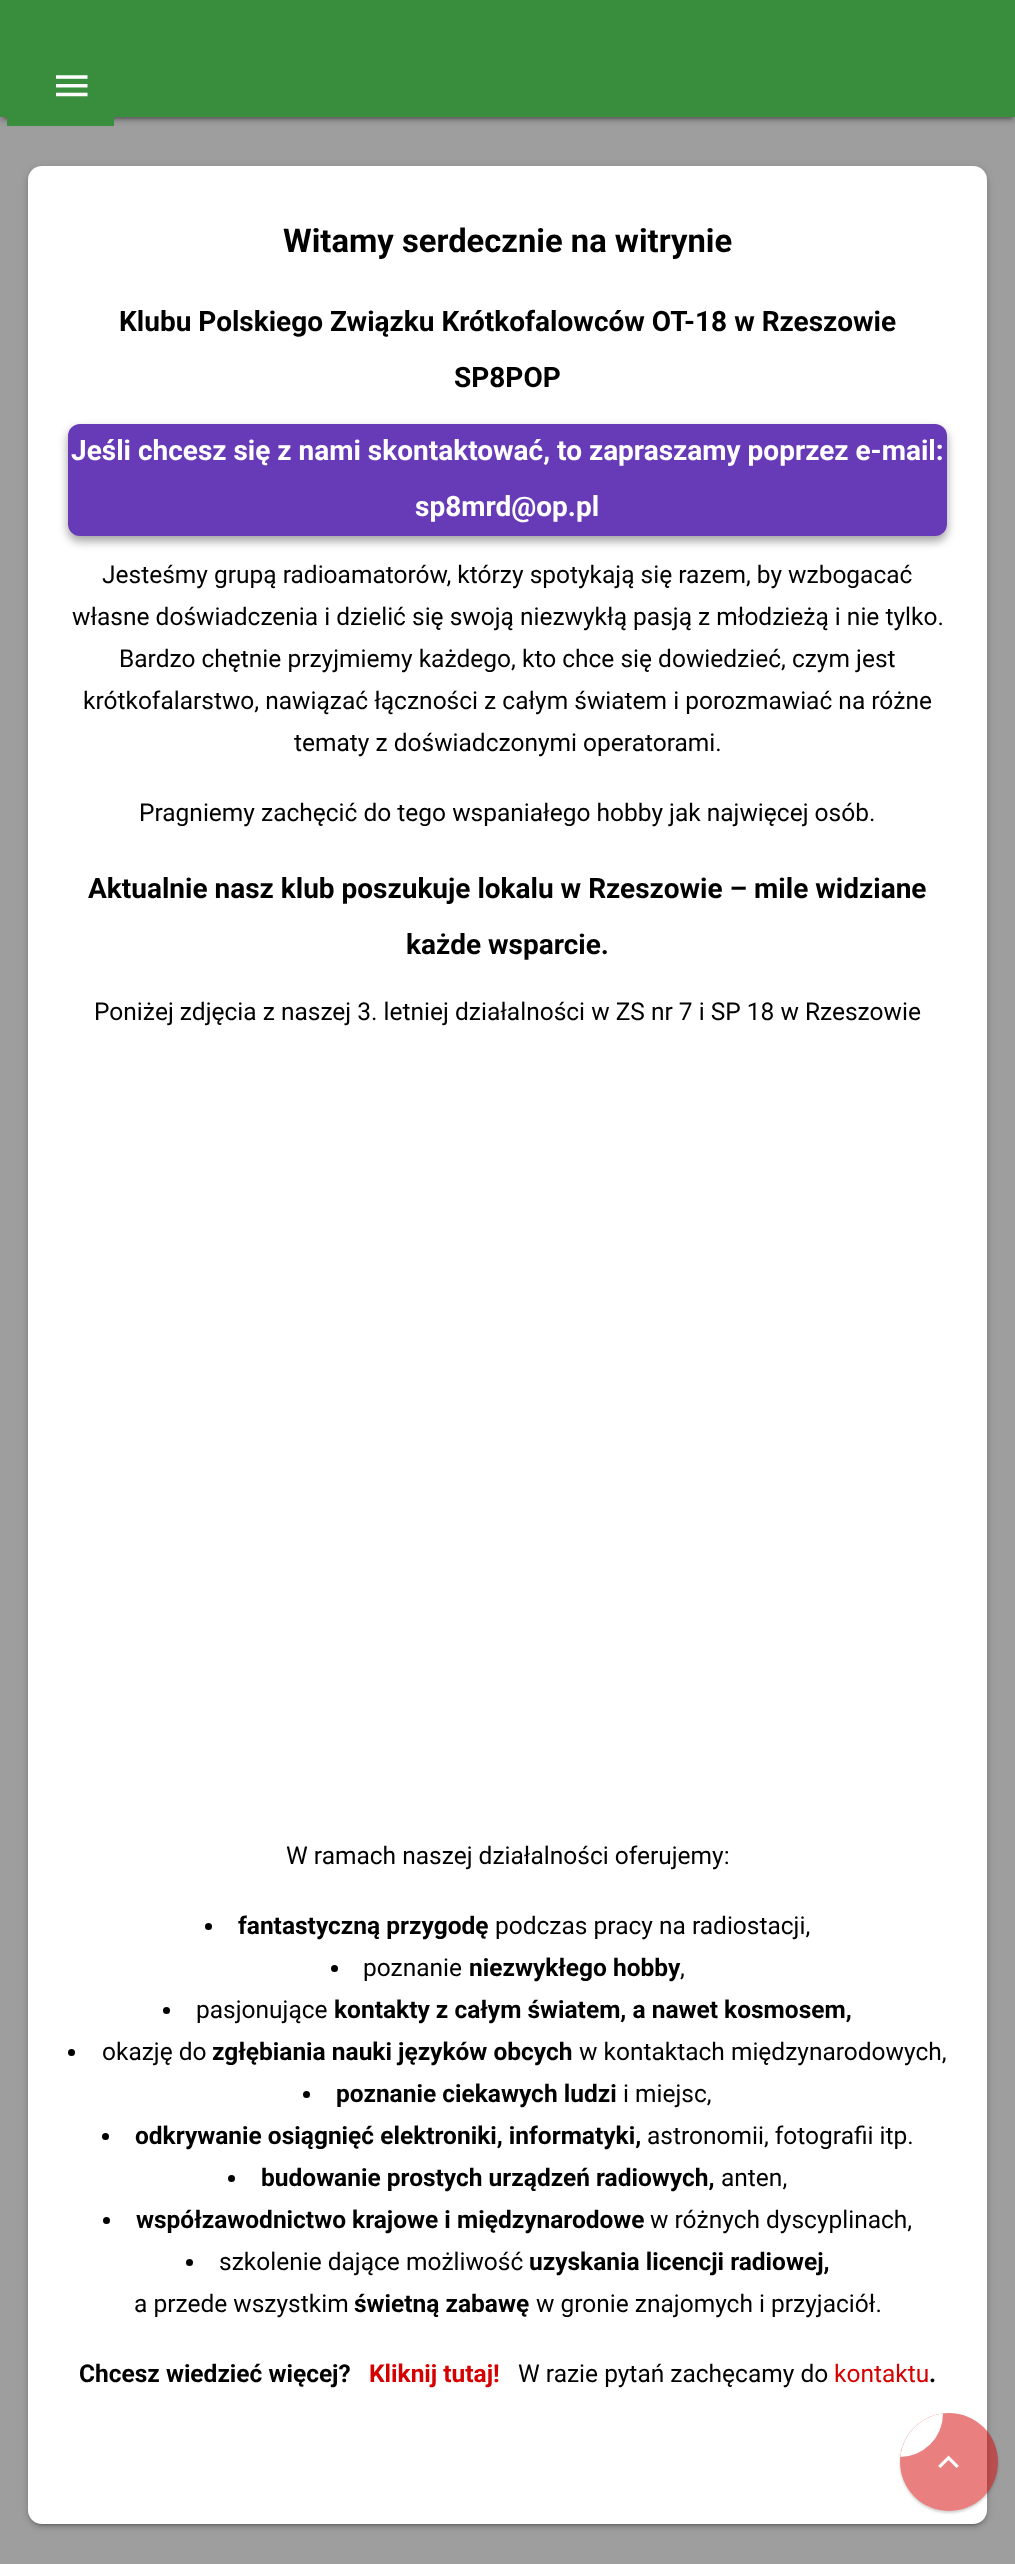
async function draw(canvas) {
  canvas.width = 1015;
  canvas.height = 2564;
  const ctx = canvas.getContext('2d');
  ctx.miterLimit = 4;
  ctx.fontKerning = 'normal';
  function label(s, x, y, font, color) {
    ctx.font = font;
    ctx.fillStyle = color;
    ctx.fillText(s, x, y);
  }
  function rect(x, y, w, h, color) {
    ctx.fillStyle = color;
    ctx.fillRect(x, y, w, h);
  }
  function roundedRect(x, y, w, h, r, color) {
    ctx.fillStyle = color;
    ctx.beginPath();
    ctx.roundRect(x, y, w, h, r);
    ctx.fill();
  }
  async function image(src, x, y, w, h) {
    const img = new Image();
    img.src = src;
    await img.decode();
    ctx.drawImage(img, x, y, w, h);
  }
  let path;

  rect(0, 0, 1015, 2564, '#9e9e9e');
  ctx.fillStyle = '#0000001f';
  ctx.filter = 'blur(4.5px)';
  ctx.beginPath();
  ctx.rect(0, 2, 1015, 117);
  ctx.fill();
  ctx.filter = 'none';
  ctx.fillStyle = '#00000033';
  ctx.filter = 'blur(1px)';
  ctx.beginPath();
  ctx.rect(4, 9, 1008, 110);
  ctx.fill();
  ctx.filter = 'none';
  ctx.fillStyle = '#00000024';
  ctx.filter = 'blur(2px)';
  ctx.beginPath();
  ctx.rect(0, 4, 1015, 117);
  ctx.fill();
  ctx.filter = 'none';
  rect(0, 0, 1015, 117, '#388e3c');
  rect(7, 117, 107, 9, '#388e3c');
  await image('assets/img1.png', 56, 75, 32, 22);
  ctx.fillStyle = '#0000001f';
  ctx.filter = 'blur(4.5px)';
  ctx.beginPath();
  ctx.roundRect(28, 168, 959, 2357, 14);
  ctx.fill();
  ctx.filter = 'none';
  ctx.fillStyle = '#00000033';
  ctx.filter = 'blur(1px)';
  ctx.beginPath();
  ctx.roundRect(32, 175, 952, 2350, 11);
  ctx.fill();
  ctx.filter = 'none';
  ctx.fillStyle = '#00000024';
  ctx.filter = 'blur(2px)';
  ctx.beginPath();
  ctx.roundRect(28, 170, 959, 2357, 14);
  ctx.fill();
  ctx.filter = 'none';
  roundedRect(28, 166, 959, 2358, 14, '#fff');
  label('Witamy serdecznie na witrynie', 283, 252, 'bold 32.75px Roboto', '#000');
  label('Klubu Polskiego Związku Krótkofalowców OT-18 w Rzeszowie', 119, 331, 'bold 28px Roboto', '#000');
  label('SP8POP', 454, 387, 'bold 28px Roboto', '#000');
  ctx.fillStyle = '#0000003b';
  ctx.filter = 'blur(5px)';
  ctx.beginPath();
  ctx.roundRect(68, 429, 879, 112, 12);
  ctx.fill();
  ctx.filter = 'none';
  ctx.fillStyle = '#00000029';
  ctx.filter = 'blur(5px)';
  ctx.beginPath();
  ctx.roundRect(68, 429, 879, 112, 12);
  ctx.fill();
  ctx.filter = 'none';
  roundedRect(68, 424, 879, 112, 12, '#673ab7');
  label('Jeśli chcesz się z nami skontaktować, to zapraszamy poprzez e-mail:', 71, 460, 'bold 28px Roboto', '#fff');
  label('sp8mrd@op.pl', 415, 516, 'bold 28px Roboto', '#fff');
  label('Jesteśmy grupą radioamatorów, którzy spotykają się razem, by wzbogacać', 102, 583, '24.5px Roboto', '#000');
  label('własne doświadczenia i dzielić się swoją niezwykłą pasją z młodzieżą i nie tylko.', 72, 625, '24.5px Roboto', '#000');
  label('Bardzo chętnie przyjmiemy każdego, kto chce się dowiedzieć, czym jest', 119, 667, '24.5px Roboto', '#000');
  label('krótkofalarstwo, nawiązać łączności z całym światem i porozmawiać na różne', 83, 709, '24.5px Roboto', '#000');
  label('tematy z doświadczonymi operatorami.', 294, 751, '24.5px Roboto', '#000');
  label('Pragniemy zachęcić do tego wspaniałego hobby jak najwięcej osób.', 139, 821, '24.5px Roboto', '#000');
  label('Aktualnie nasz klub poszukuje lokalu w Rzeszowie – mile widziane', 88, 898, 'bold 28px Roboto', '#000');
  label('każde wsparcie.', 406, 954, 'bold 28px Roboto', '#000');
  label('Poniżej zdjęcia z naszej 3. letniej działalności w ZS nr 7 i SP 18 w Rzeszowie', 94, 1020, '24.5px Roboto', '#000');
  label('W ramach naszej działalności oferujemy:', 286, 1864, '24.5px Roboto', '#000');
  ctx.beginPath();
  ctx.arc(208.5, 1926.5, 3.5, 0, 2 * Math.PI);
  ctx.fill();
  label('fantastyczną przygodę', 238, 1934, 'bold 24.5px Roboto', '#000');
  label('podczas pracy na radiostacji,', 495, 1934, '24.5px Roboto', '#000');
  ctx.beginPath();
  ctx.arc(334.5, 1968.5, 3.5, 0, 2 * Math.PI);
  ctx.fill();
  label('poznanie', 363, 1976, '24.5px Roboto', '#000');
  label('niezwykłego hobby', 469, 1976, 'bold 24.5px Roboto', '#000');
  label(',', 680, 1976, '24.5px Roboto', '#000');
  ctx.beginPath();
  ctx.arc(166.5, 2010.5, 3.5, 0, 2 * Math.PI);
  ctx.fill();
  label('pasjonujące', 196, 2018, '24.5px Roboto', '#000');
  label('kontakty z całym światem, a nawet kosmosem,', 334, 2018, 'bold 24.5px Roboto', '#000');
  ctx.beginPath();
  ctx.arc(71.5, 2052.5, 3.5, 0, 2 * Math.PI);
  ctx.fill();
  label('okazję do', 102, 2060, '24.5px Roboto', '#000');
  label('zgłębiania nauki języków obcych', 212, 2060, 'bold 24.5px Roboto', '#000');
  label('w kontaktach międzynarodowych,', 579, 2060, '24.5px Roboto', '#000');
  ctx.beginPath();
  ctx.arc(306.5, 2094.5, 3.5, 0, 2 * Math.PI);
  ctx.fill();
  label('poznanie ciekawych ludzi', 336, 2102, 'bold 24.5px Roboto', '#000');
  label('i miejsc,', 623, 2102, '24.5px Roboto', '#000');
  ctx.beginPath();
  ctx.arc(105.5, 2136.5, 3.5, 0, 2 * Math.PI);
  ctx.fill();
  label('odkrywanie osiągnięć elektroniki, informatyki,', 135, 2144, 'bold 24.5px Roboto', '#000');
  label('astronomii, fotografii itp.', 647, 2144, '24.5px Roboto', '#000');
  ctx.beginPath();
  ctx.arc(231.5, 2178.5, 3.5, 0, 2 * Math.PI);
  ctx.fill();
  label('budowanie prostych urządzeń radiowych,', 261, 2186, 'bold 24.5px Roboto', '#000');
  label('anten,', 721, 2186, '24.5px Roboto', '#000');
  ctx.beginPath();
  ctx.arc(106.5, 2220.5, 3.5, 0, 2 * Math.PI);
  ctx.fill();
  label('współzawodnictwo krajowe i międzynarodowe', 136, 2228, 'bold 24.5px Roboto', '#000');
  label('w różnych dyscyplinach,', 650, 2228, '24.5px Roboto', '#000');
  ctx.beginPath();
  ctx.arc(189.5, 2262.5, 3.5, 0, 2 * Math.PI);
  ctx.fill();
  label('szkolenie dające możliwość', 219, 2270, '24.5px Roboto', '#000');
  label('uzyskania licencji radiowej,', 529, 2270, 'bold 24.5px Roboto', '#000');
  label('a przede wszystkim', 134, 2312, '24.5px Roboto', '#000');
  label('świetną zabawę', 354, 2312, 'bold 24.5px Roboto', '#000');
  label('w gronie znajomych i przyjaciół.', 536, 2312, '24.5px Roboto', '#000');
  label('Chcesz wiedzieć więcej?', 79, 2382, 'bold 24.5px Roboto', '#000');
  label('Kliknij tutaj!', 369, 2382, 'bold 24.5px Roboto', '#d50000');
  label('W razie pytań zachęcamy do', 518, 2382, '24.5px Roboto', '#000');
  label('kontaktu', 834, 2382, '24.5px Roboto', '#d50000');
  label('.', 929, 2382, 'bold 24.5px Roboto', '#000');
  ctx.save();
  path = new Path2D('M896 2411H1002V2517H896ZM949 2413C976 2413 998 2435 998 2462C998 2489 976 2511 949 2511C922 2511 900 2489 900 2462C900 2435 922 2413 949 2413Z');
  ctx.clip(path, 'evenodd');
  ctx.fillStyle = '#0000001f';
  ctx.filter = 'blur(1px)';
  ctx.beginPath();
  ctx.roundRect(900, 2415, 98, 98, 49);
  ctx.fill();
  ctx.filter = 'none';
  ctx.restore();
  ctx.save();
  path = new Path2D('M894 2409H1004V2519H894ZM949 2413C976 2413 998 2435 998 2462C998 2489 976 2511 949 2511C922 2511 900 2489 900 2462C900 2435 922 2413 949 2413Z');
  ctx.clip(path, 'evenodd');
  ctx.fillStyle = '#0000000f';
  ctx.filter = 'blur(1.5px)';
  ctx.beginPath();
  ctx.roundRect(900, 2415, 98, 98, 49);
  ctx.fill();
  ctx.filter = 'none';
  ctx.restore();
  ctx.fillStyle = '#d5000080';
  ctx.beginPath();
  ctx.arc(949, 2462, 49, 0, 2 * Math.PI);
  ctx.fill();
  ctx.fillStyle = '#fff';
  path = new Path2D('M948.5 2455.5L959 2466L956.5 2468L948.5 2460L940.5 2468L938 2466Z');
  ctx.fill(path);
  ctx.save();
  ctx.beginPath();
  ctx.roundRect(900, 2413, 98, 98, 49);
  ctx.clip();
  ctx.beginPath();
  ctx.roundRect(900, 2413, 98, 98, 49);
  ctx.clip();
  ctx.beginPath();
  ctx.arc(899.5, 2413.5, 43.5, 0, 2 * Math.PI);
  ctx.fill();
  ctx.restore();
}

draw(document.querySelector('canvas'));
